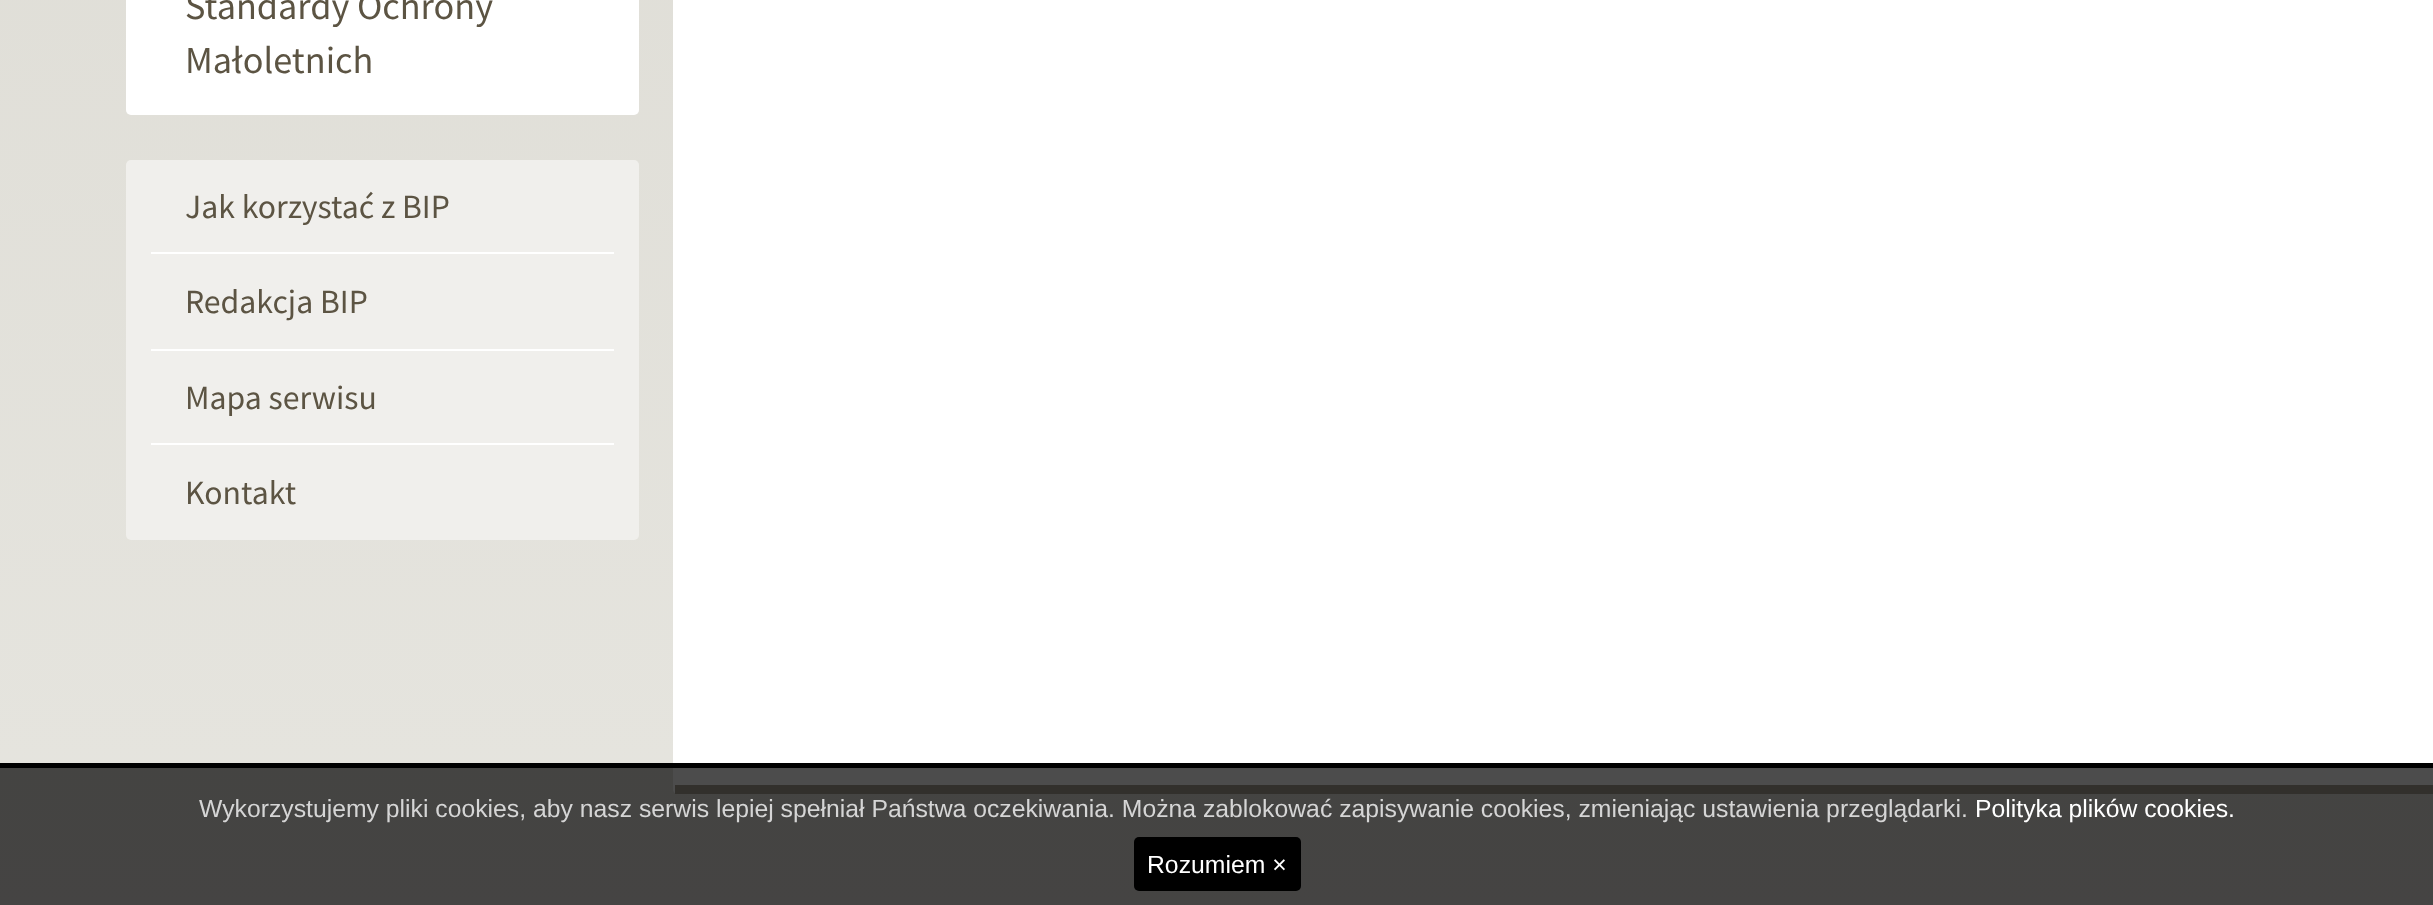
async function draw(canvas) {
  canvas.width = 2433;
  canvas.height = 905;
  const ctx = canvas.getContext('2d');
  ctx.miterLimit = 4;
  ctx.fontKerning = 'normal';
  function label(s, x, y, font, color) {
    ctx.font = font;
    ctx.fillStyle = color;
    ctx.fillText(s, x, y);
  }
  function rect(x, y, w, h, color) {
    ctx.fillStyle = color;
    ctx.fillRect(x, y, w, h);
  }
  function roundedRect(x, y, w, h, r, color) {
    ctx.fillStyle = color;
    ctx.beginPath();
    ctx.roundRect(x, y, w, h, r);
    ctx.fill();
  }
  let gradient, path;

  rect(0, 0, 2433, 905, '#fff');
  gradient = ctx.createLinearGradient(1217, -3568, 1217, 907);
  gradient.addColorStop(0, '#cac7bd');
  gradient.addColorStop(1, '#e6e5df');
  ctx.fillStyle = gradient;
  ctx.fillRect(0, 0, 2433, 905);
  roundedRect(126, -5, 513, 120, 5, '#fff');
  label('Standardy Ochrony', 185, 19, '38.25px Source Sans Pro', '#5c5443');
  label('Małoletnich', 185, 73, '38.25px Source Sans Pro', '#5c5443');
  roundedRect(126, 160, 513, 380, 5, '#f0efec');
  label('Jak korzystać z BIP', 185, 218, '33.75px Source Sans Pro', '#5c5443');
  rect(151, 252, 463, 2, '#fff');
  label('Redakcja BIP', 185, 313, '33.75px Source Sans Pro', '#5c5443');
  rect(151, 349, 463, 2, '#fff');
  label('Mapa serwisu', 185, 409, '33.75px Source Sans Pro', '#5c5443');
  rect(151, 443, 463, 2, '#fff');
  label('Kontakt', 185, 504, '33.75px Source Sans Pro', '#5c5443');
  ctx.fillStyle = '#fff';
  path = new Path2D('M678-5H2309V794H678C675 794 673 792 673 789V0C673-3 675-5 678-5Z');
  ctx.fill(path);
  rect(675, 785, 1634, 9, '#a8a295');
  rect(2309, 0, 124, 785, '#fff');
  rect(2309, 785, 124, 9, '#a8a295');
  rect(0, 768, 2433, 137, '#000000b3');
  rect(0, 763, 2433, 5, '#000');
  label('Wykorzystujemy pliki cookies, aby nasz serwis lepiej spełniał Państwa oczekiwania. Można zablokować zapisywanie cookies, zmieniając ustawienia przeglądarki.', 199, 817, '24.75px Liberation Sans', '#d5d5d5');
  label('Polityka plików cookies.', 1975, 817, '24.75px Liberation Sans', '#fff');
  roundedRect(1134, 837, 167, 54, 5, '#000');
  label('Rozumiem ×', 1147, 873, '24.75px Liberation Sans', '#fff');
}

draw(document.querySelector('canvas'));
